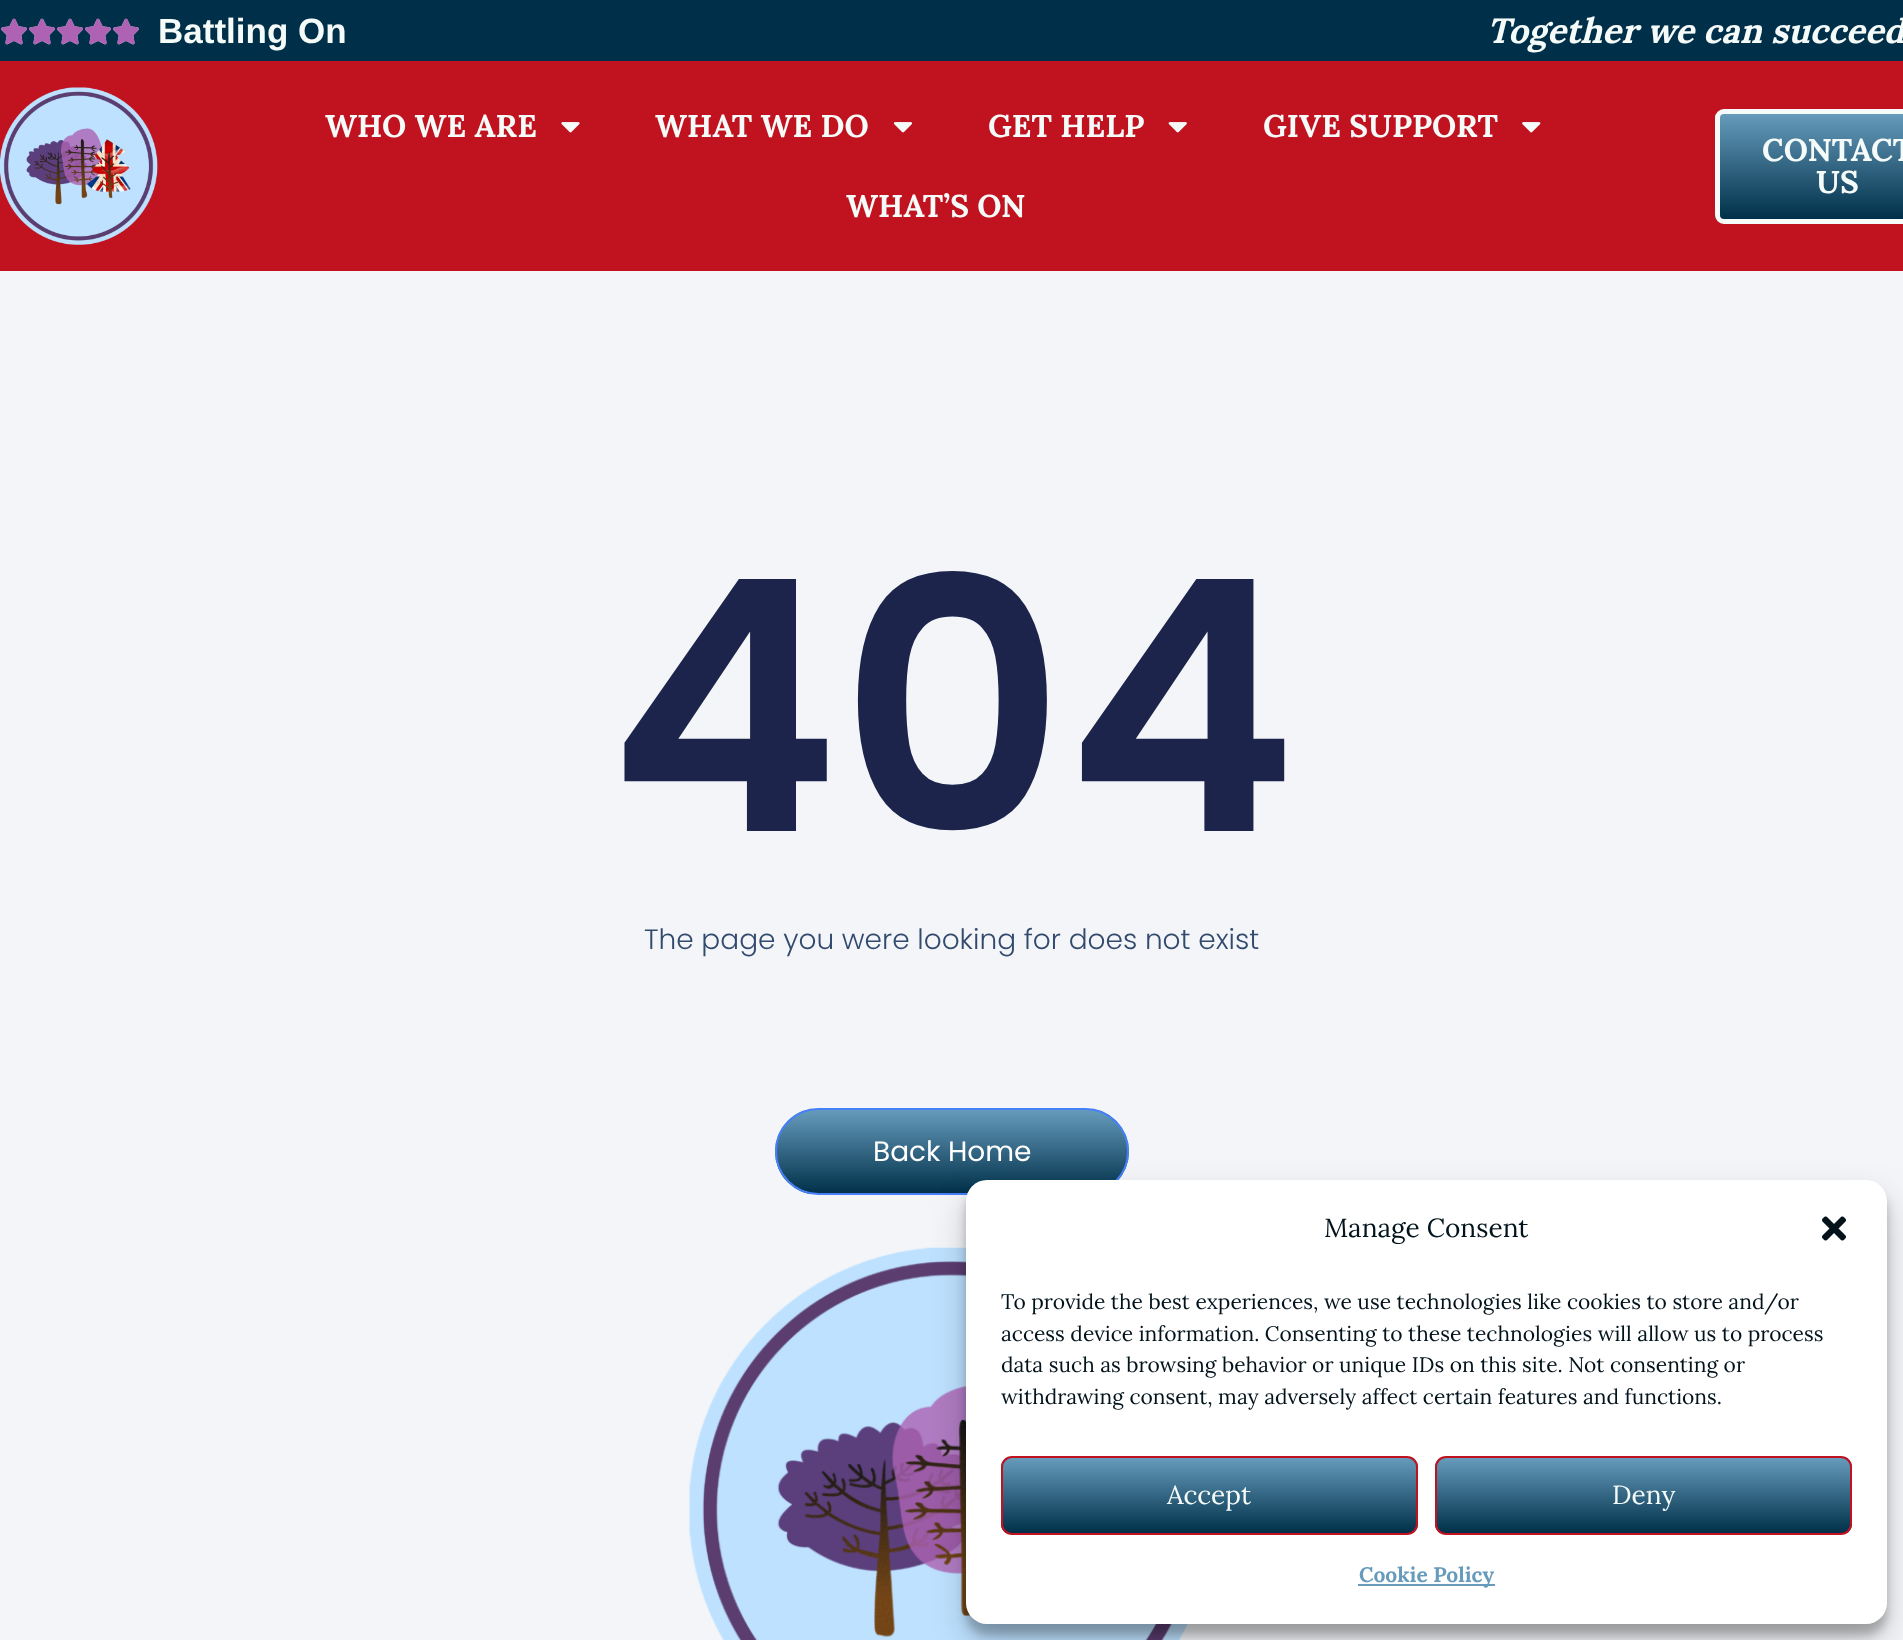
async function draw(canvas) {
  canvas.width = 1903;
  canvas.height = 1640;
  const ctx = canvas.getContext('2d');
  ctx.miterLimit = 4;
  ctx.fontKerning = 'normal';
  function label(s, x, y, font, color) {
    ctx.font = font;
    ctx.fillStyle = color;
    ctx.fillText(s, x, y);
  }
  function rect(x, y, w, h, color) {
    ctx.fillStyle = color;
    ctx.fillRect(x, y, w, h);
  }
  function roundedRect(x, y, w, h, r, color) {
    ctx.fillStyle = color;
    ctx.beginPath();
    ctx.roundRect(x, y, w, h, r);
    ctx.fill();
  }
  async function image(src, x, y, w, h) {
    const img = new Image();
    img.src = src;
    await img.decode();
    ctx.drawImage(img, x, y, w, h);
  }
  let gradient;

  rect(0, 0, 1903, 1640, '#003049');
  await image('assets/img1.png', 1, 18, 26, 27);
  await image('assets/img2.png', 1, 18, 26, 27);
  await image('assets/img1.png', 29, 18, 26, 27);
  await image('assets/img2.png', 29, 18, 26, 27);
  await image('assets/img1.png', 57, 18, 26, 27);
  await image('assets/img2.png', 57, 18, 26, 27);
  await image('assets/img1.png', 85, 18, 26, 27);
  await image('assets/img2.png', 85, 18, 26, 27);
  await image('assets/img1.png', 113, 18, 26, 27);
  await image('assets/img2.png', 113, 18, 26, 27);
  label('Battling On', 158, 43, 'bold 35px Liberation Sans', '#f5fbf9');
  label('Together we can succeed', 1487, 43, 'italic bold 35px Lora', '#f5fbf9');
  rect(0, 61, 1903, 210, '#c1121f');
  await image('assets/img3.png', 0, 87, 158, 158);
  label('WHO WE ARE', 325, 137, 'bold 31.5px Lora', '#f5fbf9');
  await image('assets/img4.png', 561, 122, 19, 11);
  label('WHAT WE DO', 655, 137, 'bold 31.5px Lora', '#f5fbf9');
  await image('assets/img5.png', 893, 122, 20, 11);
  label('GET HELP', 988, 137, 'bold 31.5px Lora', '#f5fbf9');
  await image('assets/img6.png', 1168, 122, 19, 11);
  label('GIVE SUPPORT', 1263, 137, 'bold 31.5px Lora', '#f5fbf9');
  await image('assets/img7.png', 1522, 122, 19, 11);
  label('WHAT’S ON', 846, 217, 'bold 31.5px Lora', '#f5fbf9');
  ctx.save();
  ctx.beginPath();
  ctx.roundRect(1715, 109, 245, 115, 9);
  ctx.clip();
  gradient = ctx.createLinearGradient(1838, 114, 1838, 219);
  gradient.addColorStop(0, '#669bbc');
  gradient.addColorStop(1, '#003049');
  ctx.fillStyle = gradient;
  ctx.fillRect(1715, 114, 188, 105);
  ctx.restore();
  ctx.beginPath();
  ctx.roundRect(1717.5, 111.5, 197, 110, 6.5);
  ctx.strokeStyle = '#f5fbf9';
  ctx.lineWidth = 5;
  ctx.stroke();
  label('CONTACT', 1762, 161, 'bold 31.5px Lora', '#f5fbf9');
  label('US', 1816, 193, 'bold 31.5px Lora', '#f5fbf9');
  rect(0, 271, 1903, 1369, '#f3f5f8');
  label('404', 608, 831, '600 350px Poppins', '#1c244b');
  label('The page you were looking for does not exist', 644, 949, '300 28px Poppins', '#324a6d');
  ctx.save();
  ctx.beginPath();
  ctx.roundRect(775, 1108, 354, 87, 43.5);
  ctx.clip();
  gradient = ctx.createLinearGradient(952, 1110, 952, 1194);
  gradient.addColorStop(0, '#669bbc');
  gradient.addColorStop(1, '#003049');
  ctx.fillStyle = gradient;
  ctx.fillRect(775, 1110, 354, 84);
  ctx.restore();
  ctx.beginPath();
  ctx.roundRect(776, 1109, 352, 85, 42.5);
  ctx.strokeStyle = '#467ff7';
  ctx.lineWidth = 2;
  ctx.stroke();
  label('Back Home', 873, 1161, '28px Poppins', '#fff');
  await image('assets/img8.png', 689, 1247, 499, 393);
  ctx.fillStyle = '#0000003b';
  ctx.filter = 'blur(5px)';
  ctx.beginPath();
  ctx.roundRect(966, 1190, 921, 445, 21);
  ctx.fill();
  ctx.filter = 'none';
  ctx.fillStyle = '#00000030';
  ctx.filter = 'blur(17.5px)';
  ctx.beginPath();
  ctx.roundRect(966, 1197, 921, 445, 21);
  ctx.fill();
  ctx.filter = 'none';
  roundedRect(966, 1180, 921, 444, 21, '#fff');
  label('Manage Consent', 1324, 1237, '26.25px Lora', '#02131c');
  await image('assets/img9.png', 1822, 1216, 24, 25);
  label('To provide the best experiences, we use technologies like cookies to store and/or', 1001, 1309, '21px Lora', '#02131c');
  label('access device information. Consenting to these technologies will allow us to process', 1001, 1341, '21px Lora', '#02131c');
  label('data such as browsing behavior or unique IDs on this site. Not consenting or', 1001, 1372, '21px Lora', '#02131c');
  label('withdrawing consent, may adversely affect certain features and functions.', 1001, 1404, '21px Lora', '#02131c');
  ctx.save();
  ctx.beginPath();
  ctx.roundRect(1001, 1456, 417, 79, 11);
  ctx.clip();
  gradient = ctx.createLinearGradient(1209, 1458, 1209, 1533);
  gradient.addColorStop(0, '#669bbc');
  gradient.addColorStop(1, '#003049');
  ctx.fillStyle = gradient;
  ctx.fillRect(1001, 1458, 417, 75);
  ctx.restore();
  ctx.beginPath();
  ctx.roundRect(1002, 1457, 415, 77, 10);
  ctx.strokeStyle = '#c1121f';
  ctx.stroke();
  label('Accept', 1167, 1504, '26.25px Lora', '#f5fbf9');
  ctx.save();
  ctx.beginPath();
  ctx.roundRect(1435, 1456, 417, 79, 11);
  ctx.clip();
  gradient = ctx.createLinearGradient(1643, 1458, 1643, 1533);
  gradient.addColorStop(0, '#669bbc');
  gradient.addColorStop(1, '#003049');
  ctx.fillStyle = gradient;
  ctx.fillRect(1435, 1458, 417, 75);
  ctx.restore();
  ctx.beginPath();
  ctx.roundRect(1436, 1457, 415, 77, 10);
  ctx.stroke();
  label('Deny', 1612, 1504, '26.25px Lora', '#f5fbf9');
  rect(1358, 1584, 137, 2, '#669bbc');
  label('Cookie Policy', 1359, 1582, 'bold 21px Lora', '#669bbc');
}

draw(document.querySelector('canvas'));
